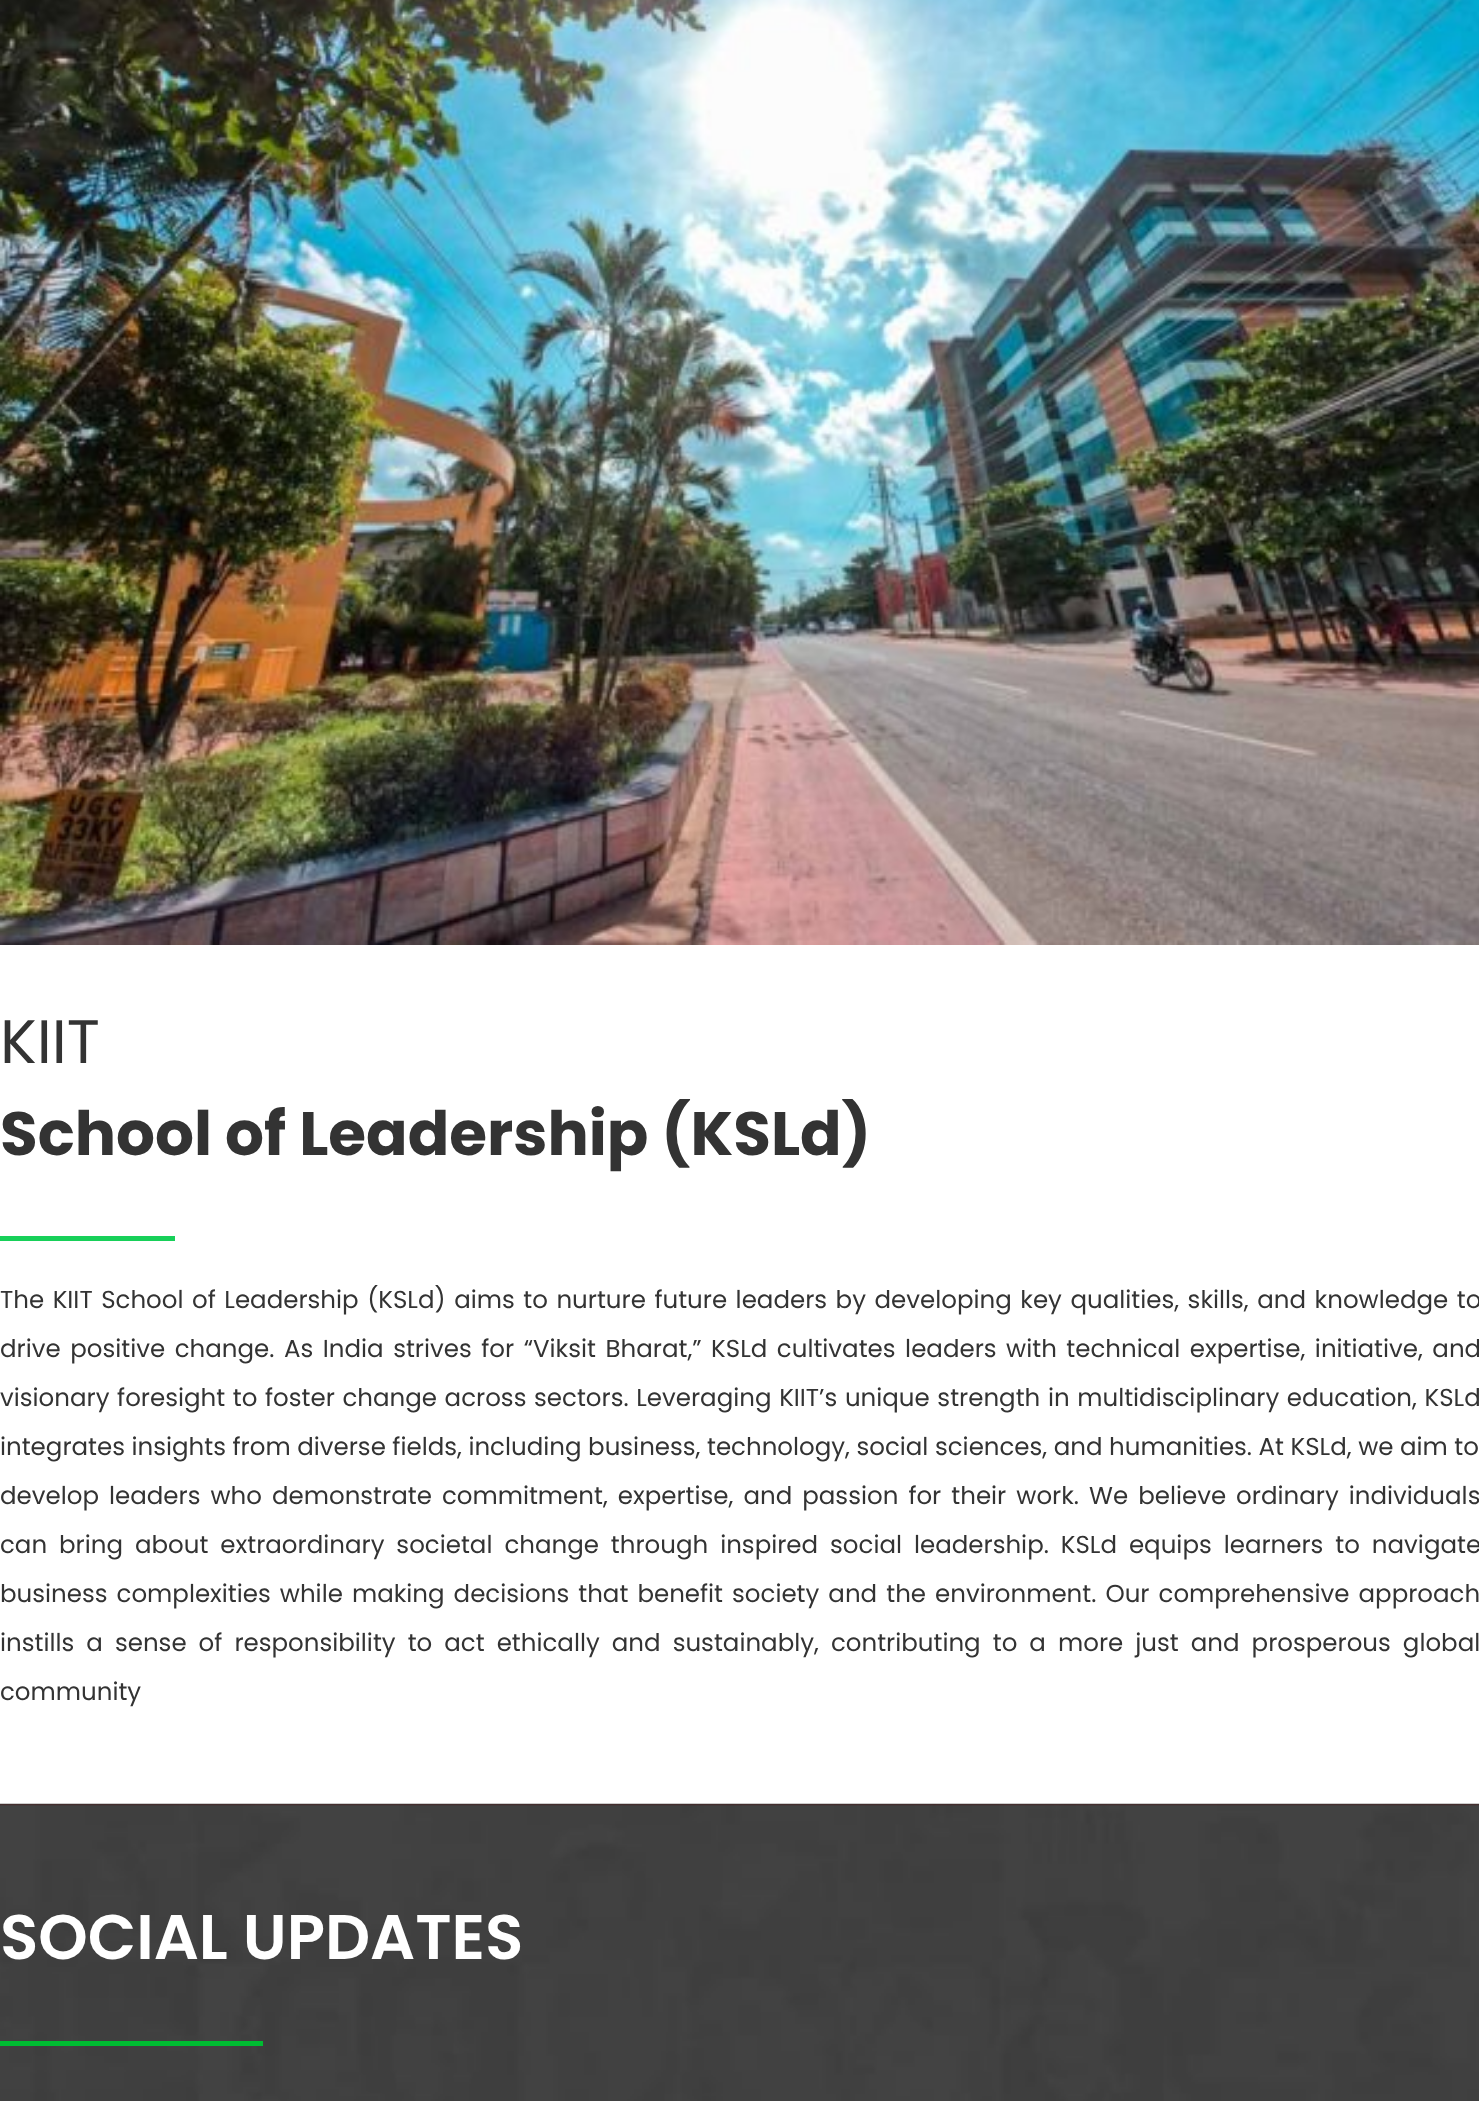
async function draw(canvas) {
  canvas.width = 1479;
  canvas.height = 2101;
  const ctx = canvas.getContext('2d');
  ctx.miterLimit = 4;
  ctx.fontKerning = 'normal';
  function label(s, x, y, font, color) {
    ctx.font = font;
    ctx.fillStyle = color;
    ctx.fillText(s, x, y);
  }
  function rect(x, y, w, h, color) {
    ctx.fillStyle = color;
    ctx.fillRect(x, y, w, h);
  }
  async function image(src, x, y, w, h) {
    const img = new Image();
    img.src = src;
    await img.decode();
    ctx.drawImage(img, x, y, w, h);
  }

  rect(0, 0, 1479, 2101, '#fff');
  await image('assets/img1.png', 0, 0, 1479, 945);
  label('KIIT', 0, 1063, '61.25px Poppins', '#333');
  label('School of Leadership (KSLd)', 0, 1155, 'bold 61.25px Poppins', '#333');
  rect(0, 1236, 175, 5, '#17d059');
  ctx.wordSpacing = '2px';
  label('The KIIT School of Leadership (KSLd) aims to nurture future leaders by developing key qualities, skills, and knowledge to', 0, 1308, '24.5px Poppins', '#333');
  ctx.wordSpacing = '3px';
  label('drive positive change. As India strives for “Viksit Bharat,” KSLd cultivates leaders with technical expertise, initiative, and', 0, 1357, '24.5px Poppins', '#333');
  ctx.wordSpacing = '1.1px';
  label('visionary foresight to foster change across sectors. Leveraging KIIT’s unique strength in multidisciplinary education, KSLd', 0, 1406, '24.5px Poppins', '#333');
  ctx.wordSpacing = '0px';
  label('integrates insights from diverse fields, including business, technology, social sciences, and humanities. At KSLd, we aim to', 0, 1455, '24.5px Poppins', '#333');
  ctx.wordSpacing = '3.5px';
  label('develop leaders who demonstrate commitment, expertise, and passion for their work. We believe ordinary individuals', 0, 1504, '24.5px Poppins', '#333');
  ctx.wordSpacing = '5.4px';
  label('can bring about extraordinary societal change through inspired social leadership. KSLd equips learners to navigate', 0, 1553, '24.5px Poppins', '#333');
  ctx.wordSpacing = '2.5px';
  label('business complexities while making decisions that benefit society and the environment. Our comprehensive approach', 0, 1602, '24.5px Poppins', '#333');
  ctx.wordSpacing = '5.5px';
  label('instills a sense of responsibility to act ethically and sustainably, contributing to a more just and prosperous global', 0, 1651, '24.5px Poppins', '#333');
  ctx.wordSpacing = '0px';
  label('community', 0, 1700, '24.5px Poppins', '#333');
  rect(0, 1804, 1479, 2, '#471d1d');
  await image('assets/img2.png', 0, 1803, 1479, 298);
  label('SOCIAL UPDATES', 0, 1959, '600 63px Poppins', '#fff');
  rect(0, 2041, 263, 5, '#00bc32');
}

draw(document.querySelector('canvas'));
